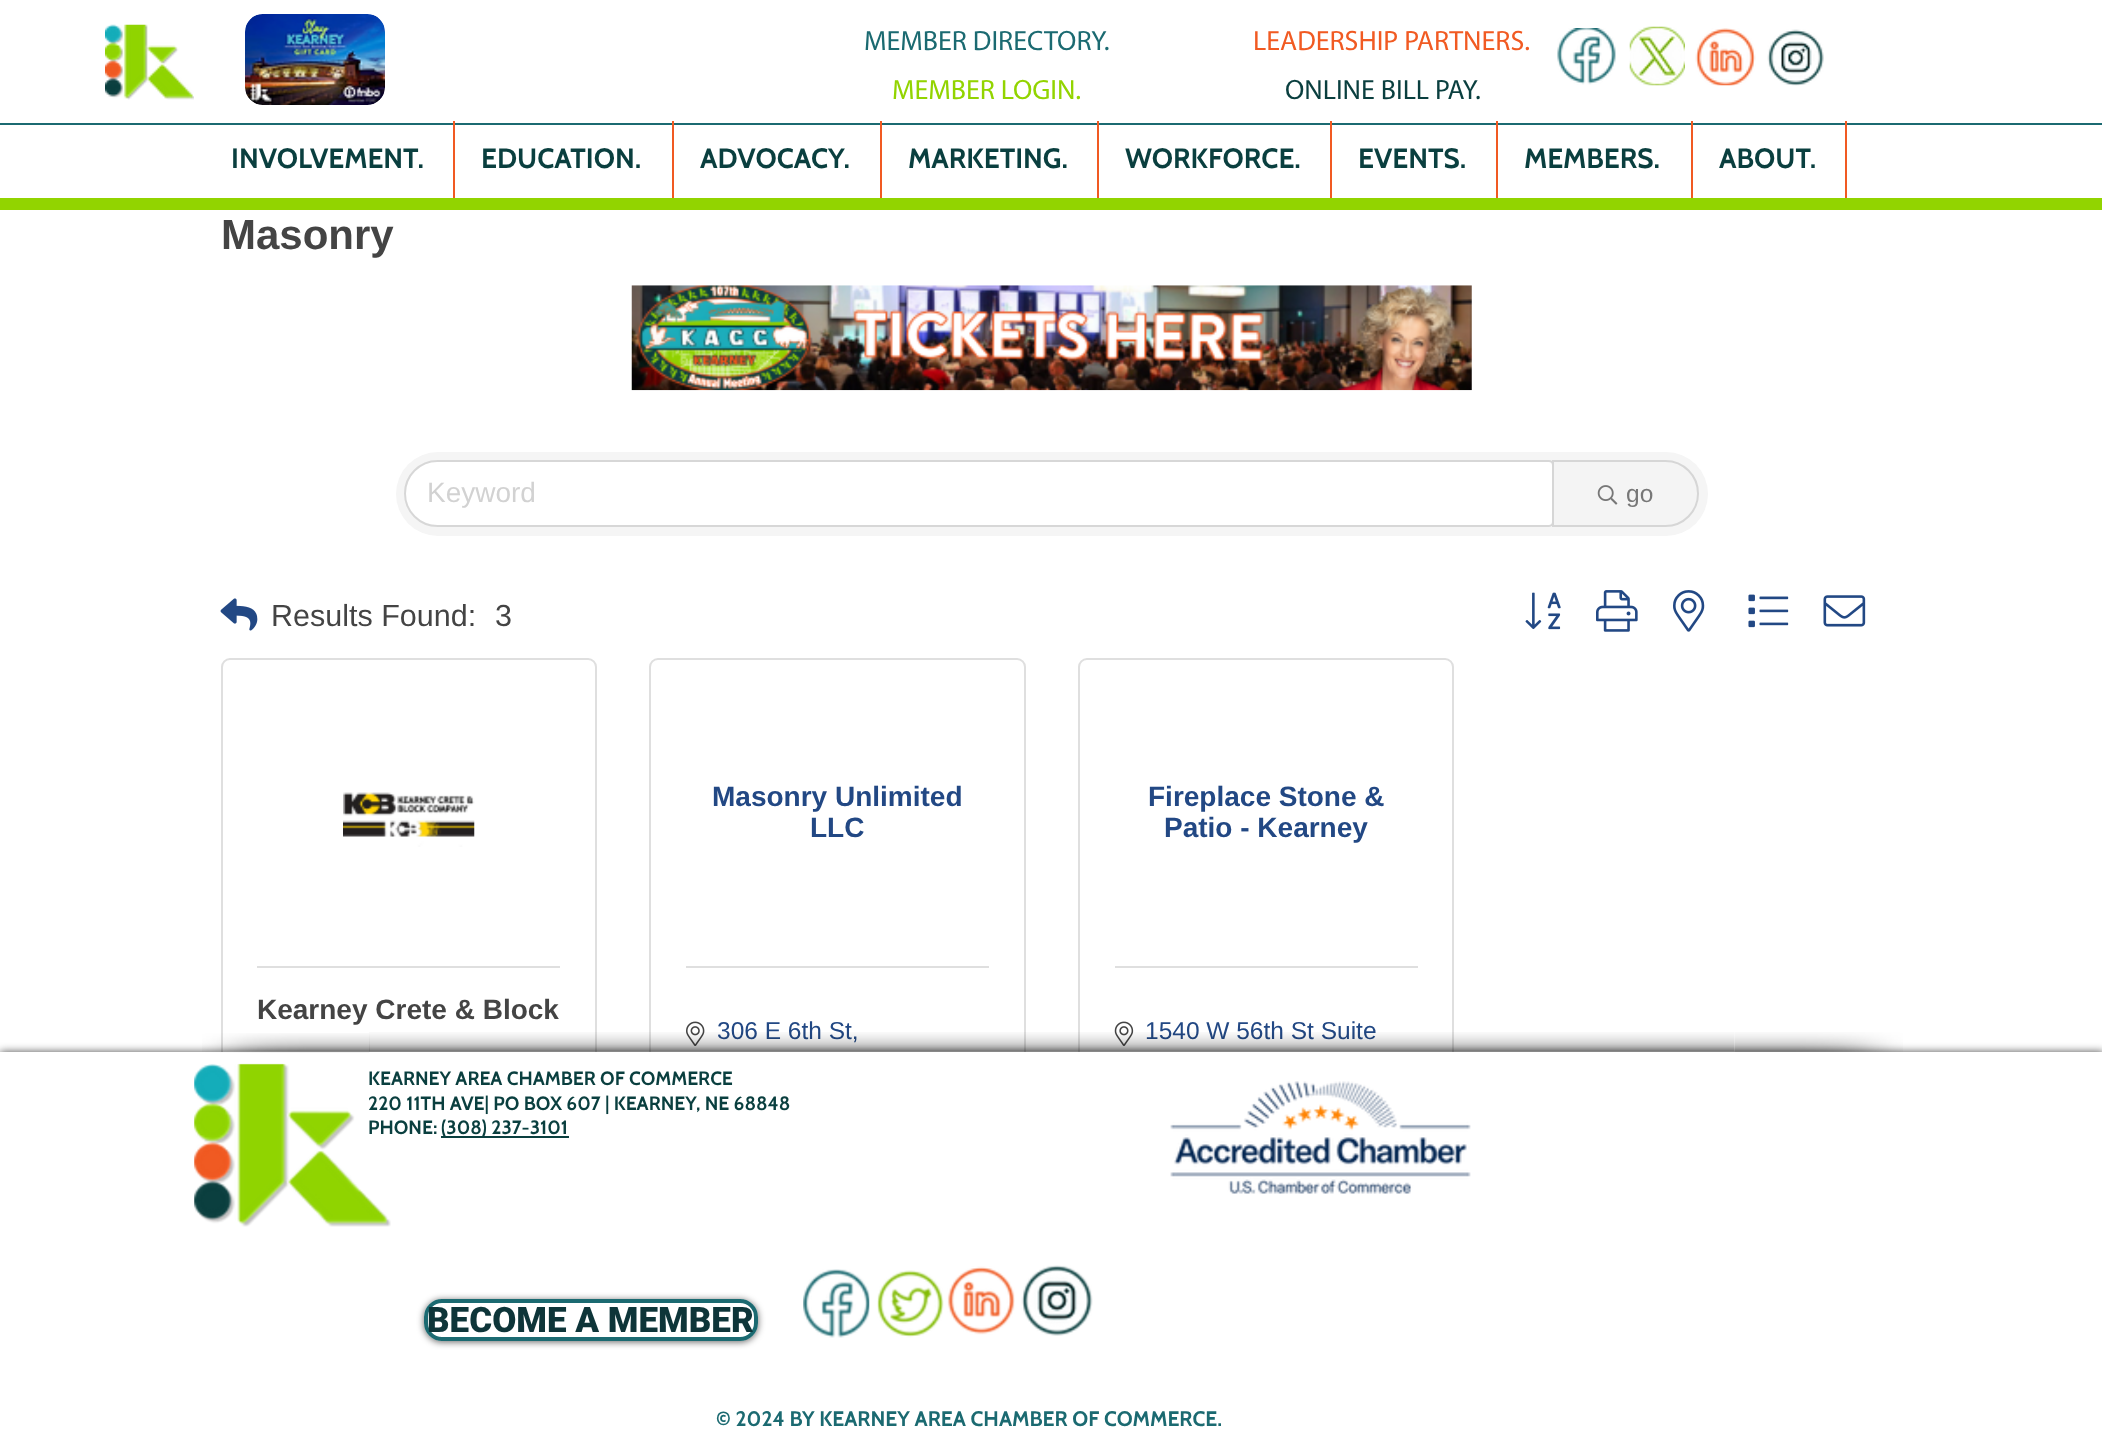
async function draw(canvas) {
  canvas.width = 2102;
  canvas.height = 1435;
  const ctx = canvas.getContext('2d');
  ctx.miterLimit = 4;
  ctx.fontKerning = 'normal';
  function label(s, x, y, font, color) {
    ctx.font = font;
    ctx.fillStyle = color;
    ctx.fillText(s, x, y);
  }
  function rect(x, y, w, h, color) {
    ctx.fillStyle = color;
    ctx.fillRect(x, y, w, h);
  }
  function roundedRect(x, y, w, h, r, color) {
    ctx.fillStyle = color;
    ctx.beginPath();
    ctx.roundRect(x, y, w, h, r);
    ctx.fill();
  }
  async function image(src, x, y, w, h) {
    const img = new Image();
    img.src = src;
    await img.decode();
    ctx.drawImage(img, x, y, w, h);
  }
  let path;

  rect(0, 0, 2102, 1435, '#fff');
  await image('assets/img1.png', 105, 24, 89, 76);
  await image('assets/img2.png', 245, 14, 140, 91);
  label('MEMBER DIRECTORY.', 864, 50, '28px Myriad', '#1b6a71');
  label('LEADERSHIP PARTNERS.', 1253, 50, '28px Myriad', '#f15a22');
  await image('assets/img3.png', 1557, 28, 59, 57);
  await image('assets/img4.png', 1629, 26, 56, 60);
  await image('assets/img5.png', 1695, 28, 61, 58);
  await image('assets/img6.png', 1767, 29, 57, 57);
  label('MEMBER LOGIN.', 892, 99, '28px Myriad', '#92d400');
  label('ONLINE BILL PAY.', 1285, 99, '28px Myriad', '#0a3f3f');
  rect(0, 123, 2102, 2, '#1b6a71');
  label('INVOLVEMENT.', 231, 168, 'bold 28px Cabin', '#0a3f3f');
  rect(453, 121, 2, 77, '#f15a22');
  label('EDUCATION.', 481, 168, 'bold 28px Cabin', '#0a3f3f');
  rect(672, 121, 2, 77, '#f15a22');
  label('ADVOCACY.', 700, 168, 'bold 28px Cabin', '#0a3f3f');
  rect(880, 121, 2, 77, '#f15a22');
  label('MARKETING.', 908, 168, 'bold 28px Cabin', '#0a3f3f');
  rect(1097, 121, 2, 77, '#f15a22');
  label('WORKFORCE.', 1125, 168, 'bold 28px Cabin', '#0a3f3f');
  rect(1330, 121, 2, 77, '#f15a22');
  label('EVENTS.', 1358, 168, 'bold 28px Cabin', '#0a3f3f');
  rect(1496, 121, 2, 77, '#f15a22');
  label('MEMBERS.', 1524, 168, 'bold 28px Cabin', '#0a3f3f');
  rect(1691, 121, 2, 77, '#f15a22');
  label('ABOUT.', 1719, 168, 'bold 28px Cabin', '#0a3f3f');
  rect(1845, 121, 2, 77, '#f15a22');
  rect(0, 198, 2102, 12, '#92d400');
  label('Masonry', 221, 249, 'bold 42px Liberation Sans', '#444');
  await image('assets/img7.png', 631, 285, 841, 106);
  roundedRect(396, 452, 1312, 84, 42, '#f5f5f5');
  ctx.fillStyle = '#fff';
  ctx.beginPath();
  ctx.roundRect(406, 462, 1146, 63, [31.5, 4, 4, 31.5]);
  ctx.fill();
  ctx.beginPath();
  ctx.roundRect(405, 461, 1148, 65, [32.5, 4, 4, 32.5]);
  ctx.strokeStyle = '#0000001f';
  ctx.lineWidth = 2;
  ctx.stroke();
  label('Keyword', 427, 502, '28px Liberation Sans', '#d2d2d2');
  ctx.fillStyle = '#f4f4f4';
  ctx.beginPath();
  ctx.roundRect(1553, 461, 145, 65, [0, 32.5, 32.5, 0]);
  ctx.fill();
  ctx.strokeStyle = '#d6d6d6';
  ctx.stroke();
  await image('assets/img8.png', 1597, 485, 21, 20);
  label('go', 1626, 502, '24.5px Liberation Sans', '#777');
  await image('assets/img9.png', 220, 598, 38, 33);
  label('Results Found:', 271, 626, '30.5px Liberation Sans', '#444');
  label('3', 495, 626, '30.5px Liberation Sans', '#444');
  await image('assets/img10.png', 1525, 592, 36, 38);
  await image('assets/img11.png', 1596, 590, 42, 42);
  await image('assets/img12.png', 1673, 590, 32, 42);
  await image('assets/img13.png', 1748, 594, 41, 34);
  await image('assets/img14.png', 1823, 595, 43, 32);
  ctx.beginPath();
  ctx.roundRect(222, 659, 374, 605, 8);
  ctx.strokeStyle = '#dfdfdf';
  ctx.stroke();
  await image('assets/img15.png', 343, 792, 132, 55);
  rect(257, 966, 303, 2, '#dfdfdf');
  label('Kearney Crete & Block', 257, 1019, 'bold 28px Liberation Sans', '#444');
  ctx.beginPath();
  ctx.roundRect(650, 659, 375, 605, 8);
  ctx.stroke();
  label('Masonry Unlimited', 712, 806, 'bold 28px Liberation Sans', '#224884');
  label('LLC', 810, 837, 'bold 28px Liberation Sans', '#224884');
  rect(686, 966, 303, 2, '#dfdfdf');
  await image('assets/img16.png', 686, 1021, 19, 25);
  label('306 E 6th St,', 717, 1039, '24.5px Liberation Sans', '#224884');
  ctx.beginPath();
  ctx.roundRect(1079, 659, 374, 605, 8);
  ctx.stroke();
  label('Fireplace Stone &', 1148, 806, 'bold 28px Liberation Sans', '#224884');
  label('Patio - Kearney', 1164, 837, 'bold 28px Liberation Sans', '#224884');
  rect(1115, 966, 303, 2, '#dfdfdf');
  await image('assets/img17.png', 1114, 1021, 20, 25);
  label('1540 W 56th St Suite', 1145, 1039, '24.5px Liberation Sans', '#224884');
  ctx.fillStyle = '#000000b3';
  ctx.filter = 'blur(4.5px)';
  ctx.beginPath();
  ctx.rect(0, 1052, 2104, 383);
  ctx.fill();
  ctx.filter = 'none';
  rect(0, 1052, 2102, 383, '#fff');
  await image('assets/img18.png', 202, 1033, 168, 20);
  await image('assets/img19.png', 369, 1032, 1365, 20);
  await image('assets/img20.png', 1734, 1032, 169, 20);
  await image('assets/img21.png', 194, 1063, 197, 164);
  label('KEARNEY AREA CHAMBER OF COMMERCE', 368, 1085, 'bold 19.25px Cabin', '#0a3f3f');
  label('220 11TH AVE| PO BOX 607 | KEARNEY, NE 68848', 368, 1110, 'bold 19.25px Cabin', '#0a3f3f');
  label('PHONE:', 368, 1134, 'bold 19.25px Cabin', '#0a3f3f');
  rect(441, 1136, 128, 2, '#0a3f3f');
  label('(308) 237-3101', 441, 1134, 'bold 19.25px Cabin', '#0a3f3f');
  await image('assets/img22.png', 1170, 1081, 301, 113);
  ctx.save();
  path = new Path2D('M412 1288H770V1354H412ZM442 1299H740C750 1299 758 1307 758 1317V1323C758 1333 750 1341 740 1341H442C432 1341 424 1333 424 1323V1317C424 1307 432 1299 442 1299Z');
  ctx.clip(path, 'evenodd');
  ctx.fillStyle = '#00000099';
  ctx.filter = 'blur(3.5px)';
  ctx.beginPath();
  ctx.roundRect(424, 1300, 334, 42, 18);
  ctx.fill();
  ctx.filter = 'none';
  ctx.restore();
  ctx.beginPath();
  ctx.roundRect(426, 1301, 330, 38, 16);
  ctx.strokeStyle = '#1b6a71';
  ctx.lineWidth = 4;
  ctx.stroke();
  label('BECOME A MEMBER', 427, 1332, '900 35px Roboto', '#0e3539');
  await image('assets/img23.png', 803, 1269, 67, 69);
  await image('assets/img24.png', 877, 1270, 67, 68);
  await image('assets/img25.png', 947, 1266, 68, 69);
  await image('assets/img26.png', 1021, 1265, 72, 71);
  label('© 2024 BY KEARNEY AREA CHAMBER OF COMMERCE.', 716, 1426, 'bold 21px Cabin', '#1b6a71');
}

draw(document.querySelector('canvas'));
